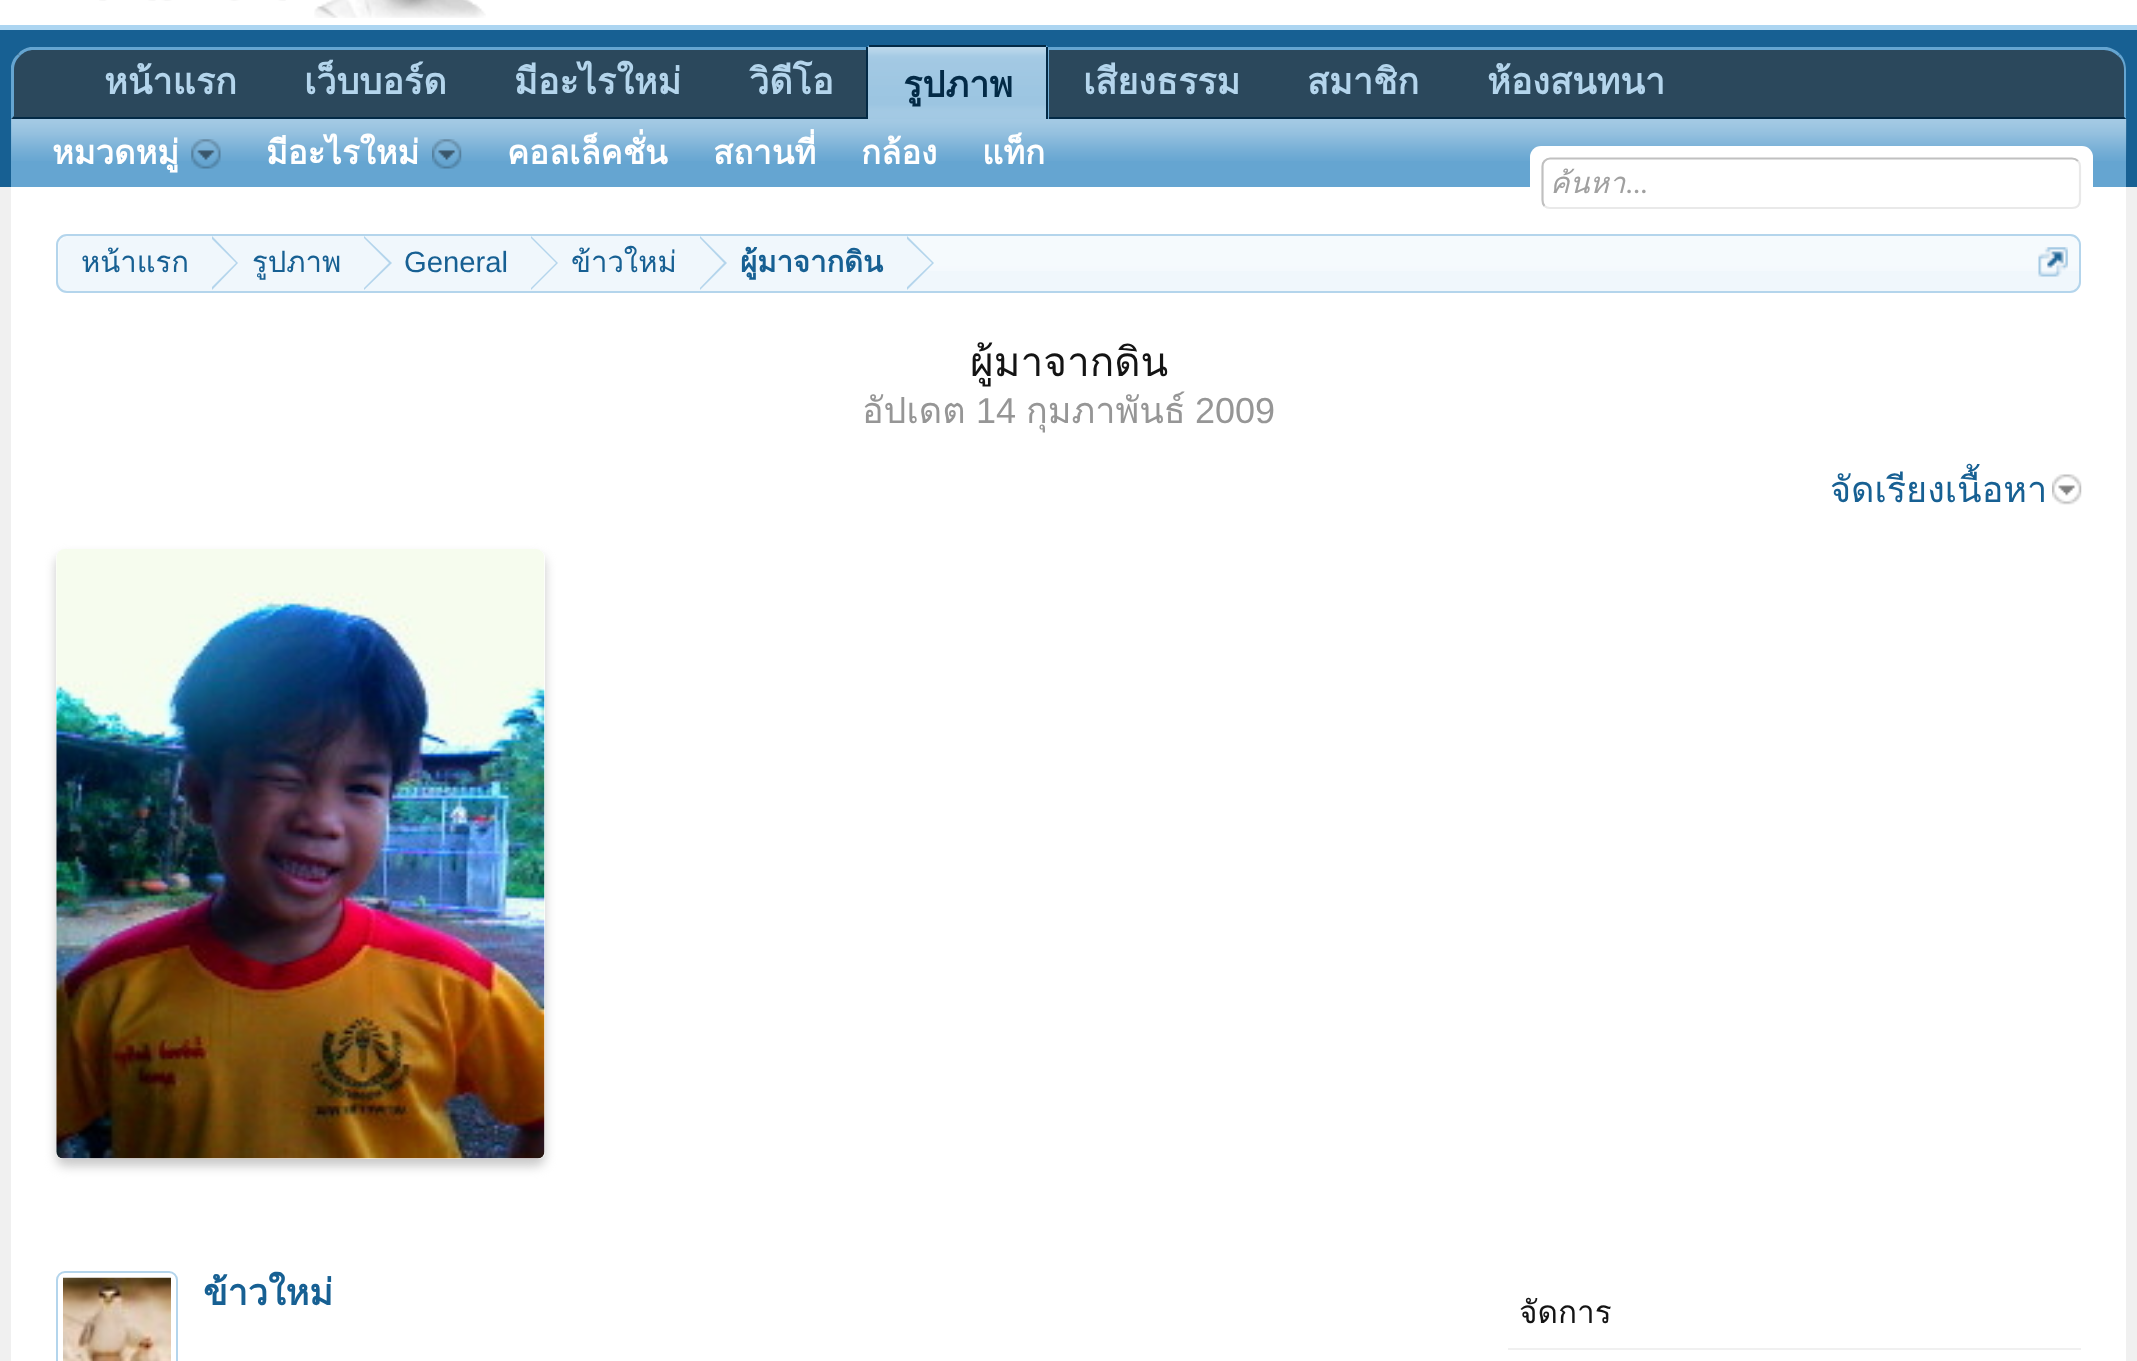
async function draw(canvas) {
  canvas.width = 2137;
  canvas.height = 1361;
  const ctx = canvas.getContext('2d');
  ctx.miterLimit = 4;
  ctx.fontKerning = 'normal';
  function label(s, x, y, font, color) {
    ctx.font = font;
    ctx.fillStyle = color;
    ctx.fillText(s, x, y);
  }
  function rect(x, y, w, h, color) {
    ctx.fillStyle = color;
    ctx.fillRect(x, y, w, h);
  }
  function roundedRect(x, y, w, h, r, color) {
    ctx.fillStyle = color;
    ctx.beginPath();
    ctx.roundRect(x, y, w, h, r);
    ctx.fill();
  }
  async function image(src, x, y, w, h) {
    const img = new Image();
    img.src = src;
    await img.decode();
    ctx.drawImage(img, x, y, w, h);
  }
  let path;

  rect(0, 0, 2137, 1361, '#f0f0f0');
  rect(0, 30, 2137, 157, '#176093');
  rect(0, 0, 2137, 25, '#fff');
  rect(0, 25, 2137, 5, '#acd5f1');
  await image('assets/img1.png', 99, 0, 187, 1);
  await image('assets/img2.png', 314, 0, 172, 18);
  ctx.fillStyle = '#2b485c';
  ctx.beginPath();
  ctx.roundRect(11, 47, 2115, 72, [23, 23, 0, 0]);
  ctx.fill();
  ctx.fillStyle = '#65a5d1';
  path = new Path2D('M34 50C28 50 24 52 20 56L18 54C21 50 25 48 30 47H2107C2112 48 2116 50 2120 54L2118 56C2114 52 2109 50 2104 50Z');
  ctx.fill(path);
  path = new Path2D('M2120 54C2124 58 2126 64 2126 70V119L2124 117V70C2124 64 2122 59 2118 56Z');
  ctx.fill(path);
  ctx.fillStyle = '#032a46';
  path = new Path2D('M2126 119L2124 117H14V116L12 119Z');
  ctx.fill(path);
  ctx.fillStyle = '#65a5d1';
  path = new Path2D('M11 66C12 61 14 57 18 54L20 56C16 60 14 64 14 70V116L11 119Z');
  ctx.fill(path);
  label('หน้าแรก', 104, 94, 'bold 36px Loma', '#b4d5ec');
  label('เว็บบอร์ด', 304, 94, 'bold 36px Loma', '#b4d5ec');
  label('มีอะไรใหม่', 514, 94, 'bold 36px Loma', '#b4d5ec');
  label('วิดีโอ', 749, 94, 'bold 36px Loma', '#b4d5ec');
  label('เสียงธรรม', 1083, 94, 'bold 36px Loma', '#b4d5ec');
  label('สมาชิก', 1307, 94, 'bold 36px Loma', '#b4d5ec');
  label('ห้องสนทนา', 1487, 94, 'bold 36px Loma', '#b4d5ec');
  ctx.fillStyle = '#65a5d1';
  ctx.beginPath();
  ctx.roundRect(866, 45, 183, 74, [5, 5, 0, 0]);
  ctx.fill();
  await image('assets/img3.png', 868, 47, 181, 72);
  rect(869, 45, 177, 2, '#032a46');
  rect(1046, 47, 2, 72, '#032a46');
  rect(866, 47, 2, 72, '#032a46');
  label('รูปภาพ', 903, 97, 'bold 36px Loma', '#032a46');
  rect(11, 119, 2115, 68, '#65a5d1');
  await image('assets/img4.png', 11, 119, 2116, 42);
  label('หมวดหมู่', 52, 164, 'bold 33px Loma', '#fff');
  await image('assets/img5.png', 191, 139, 30, 30);
  label('มีอะไรใหม่', 266, 164, 'bold 33px Loma', '#fff');
  await image('assets/img6.png', 432, 139, 30, 30);
  label('คอลเล็คชั่น', 507, 164, 'bold 33px Loma', '#fff');
  label('สถานที่', 713, 164, 'bold 33px Loma', '#fff');
  label('กล้อง', 861, 164, 'bold 33px Loma', '#fff');
  label('แท็ก', 982, 164, 'bold 33px Loma', '#fff');
  rect(11, 187, 2115, 1174, '#fff');
  roundedRect(1530, 146, 563, 63, 11, '#fff');
  path = new Path2D('M2078 161C2079.5 162.5 2080 164.5 2080 166.5V200C2080 202.5 2079.5 204.5 2078 206C2076.5 207.5 2074.5 208 2072 208H1550C1548 208 1546 207.5 1544.5 206');
  ctx.strokeStyle = '#e9e9e9';
  ctx.lineWidth = 2.2;
  ctx.stroke(path);
  path = new Path2D('M1544.5 206C1543 204.5 1542.5 202.5 1542.5 200V166.5C1542.5 164.5 1543 162.5 1544.5 161C1546 159.5 1548 158.5 1550 158.5H2072C2074.5 158.5 2076.5 159.5 2078 161');
  ctx.strokeStyle = '#c0c0c0';
  ctx.stroke(path);
  ctx.save();
  ctx.beginPath();
  ctx.rect(1550, 160, 493, 47);
  ctx.clip();
  label('ค้นหา', 1550, 193, 'italic 29.25px Loma', '#a0a0a0');
  ctx.restore();
  label('...', 1626, 193, 'italic 29.25px Carlito', '#a0a0a0');
  roundedRect(56, 234, 2025, 59, 11, '#f0f7fc');
  await image('assets/img7.png', 57, 236, 2024, 35);
  ctx.beginPath();
  ctx.roundRect(57, 235, 2023, 57, 10);
  ctx.strokeStyle = '#b4d5ec';
  ctx.lineWidth = 2;
  ctx.stroke();
  ctx.save();
  ctx.beginPath();
  ctx.roundRect(59, 236, 2020, 54, 9);
  ctx.clip();
  ctx.beginPath();
  ctx.roundRect(59, 236, 153, 57, [11, 0, 0, 11]);
  ctx.fill();
  ctx.restore();
  label('หน้าแรก', 81, 272, '29.25px Loma', '#176093');
  rect(212, 236, 695, 35, '#f0f7fc');
  ctx.fillStyle = '#b4d5ec';
  path = new Path2D('M212 290V236L238 263Z');
  ctx.fill(path);
  ctx.fillStyle = '#f0f7fc';
  path = new Path2D('M209 290V236L236 263Z');
  ctx.fill(path);
  ctx.save();
  ctx.beginPath();
  ctx.rect(252, 236, 90, 54);
  ctx.clip();
  label('รูปภาพ', 252, 272, '29.25px Loma', '#176093');
  ctx.restore();
  ctx.fillStyle = '#b4d5ec';
  path = new Path2D('M364 290V236L392 263Z');
  ctx.fill(path);
  ctx.fillStyle = '#f0f7fc';
  path = new Path2D('M362 290V236L389 263Z');
  ctx.fill(path);
  label('General', 404, 272, '29.25px Liberation Sans', '#176093');
  ctx.fillStyle = '#b4d5ec';
  path = new Path2D('M531 290V236L558 263Z');
  ctx.fill(path);
  ctx.fillStyle = '#f0f7fc';
  path = new Path2D('M529 290V236L556 263Z');
  ctx.fill(path);
  ctx.save();
  ctx.beginPath();
  ctx.rect(572, 236, 105, 54);
  ctx.clip();
  label('ข้าวใหม่', 571, 272, '29.25px Loma', '#176093');
  ctx.restore();
  ctx.fillStyle = '#b4d5ec';
  path = new Path2D('M700 290V236L727 263Z');
  ctx.fill(path);
  ctx.fillStyle = '#f0f7fc';
  path = new Path2D('M698 290V236L724 263Z');
  ctx.fill(path);
  ctx.save();
  ctx.beginPath();
  ctx.rect(740, 236, 144, 54);
  ctx.clip();
  label('ผู้มาจากดิน', 740, 272, 'bold 29.25px Loma', '#176093');
  ctx.restore();
  ctx.fillStyle = '#b4d5ec';
  path = new Path2D('M907 290V236L934 263Z');
  ctx.fill(path);
  ctx.fillStyle = '#f0f7fc';
  path = new Path2D('M904 290V236L932 263Z');
  ctx.fill(path);
  await image('assets/img8.png', 2038, 247, 30, 30);
  label('ผู้มาจากดิน', 970, 376, '40.5px Loma', '#141414');
  label('อัปเดต', 862, 423, '36px Loma', '#969696');
  label('14', 976, 423, '36px Liberation Sans', '#969696');
  label('กุมภาพันธ์', 1026, 423, '36px Loma', '#969696');
  label('2009', 1195, 423, '36px Liberation Sans', '#969696');
  label('จัดเรียงเนื้อหา', 1830, 502, '36px Loma', '#176093');
  await image('assets/img9.png', 2052, 474, 30, 31);
  ctx.fillStyle = '#c8c8c8';
  ctx.filter = 'blur(5.5px)';
  ctx.beginPath();
  ctx.roundRect(56, 556, 489, 610, 9);
  ctx.fill();
  ctx.filter = 'none';
  ctx.fillStyle = '#fff';
  ctx.beginPath();
  ctx.roundRect(56, 549, 489, 610, [9, 9, 7, 7]);
  ctx.fill();
  await image('assets/img10.png', 56, 549, 489, 610);
  await image('assets/img11.png', 63, 1277, 108, 84);
  ctx.beginPath();
  ctx.roundRect(57, 1272, 120, 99, 8);
  ctx.stroke();
  label('ข้าวใหม่', 203, 1305, 'bold 36px Loma', '#176093');
  rect(1508, 1348, 573, 2, '#f0f0f0');
  label('จัดการ', 1519, 1323, '31.5px Loma', '#141414');
}

draw(document.querySelector('canvas'));
